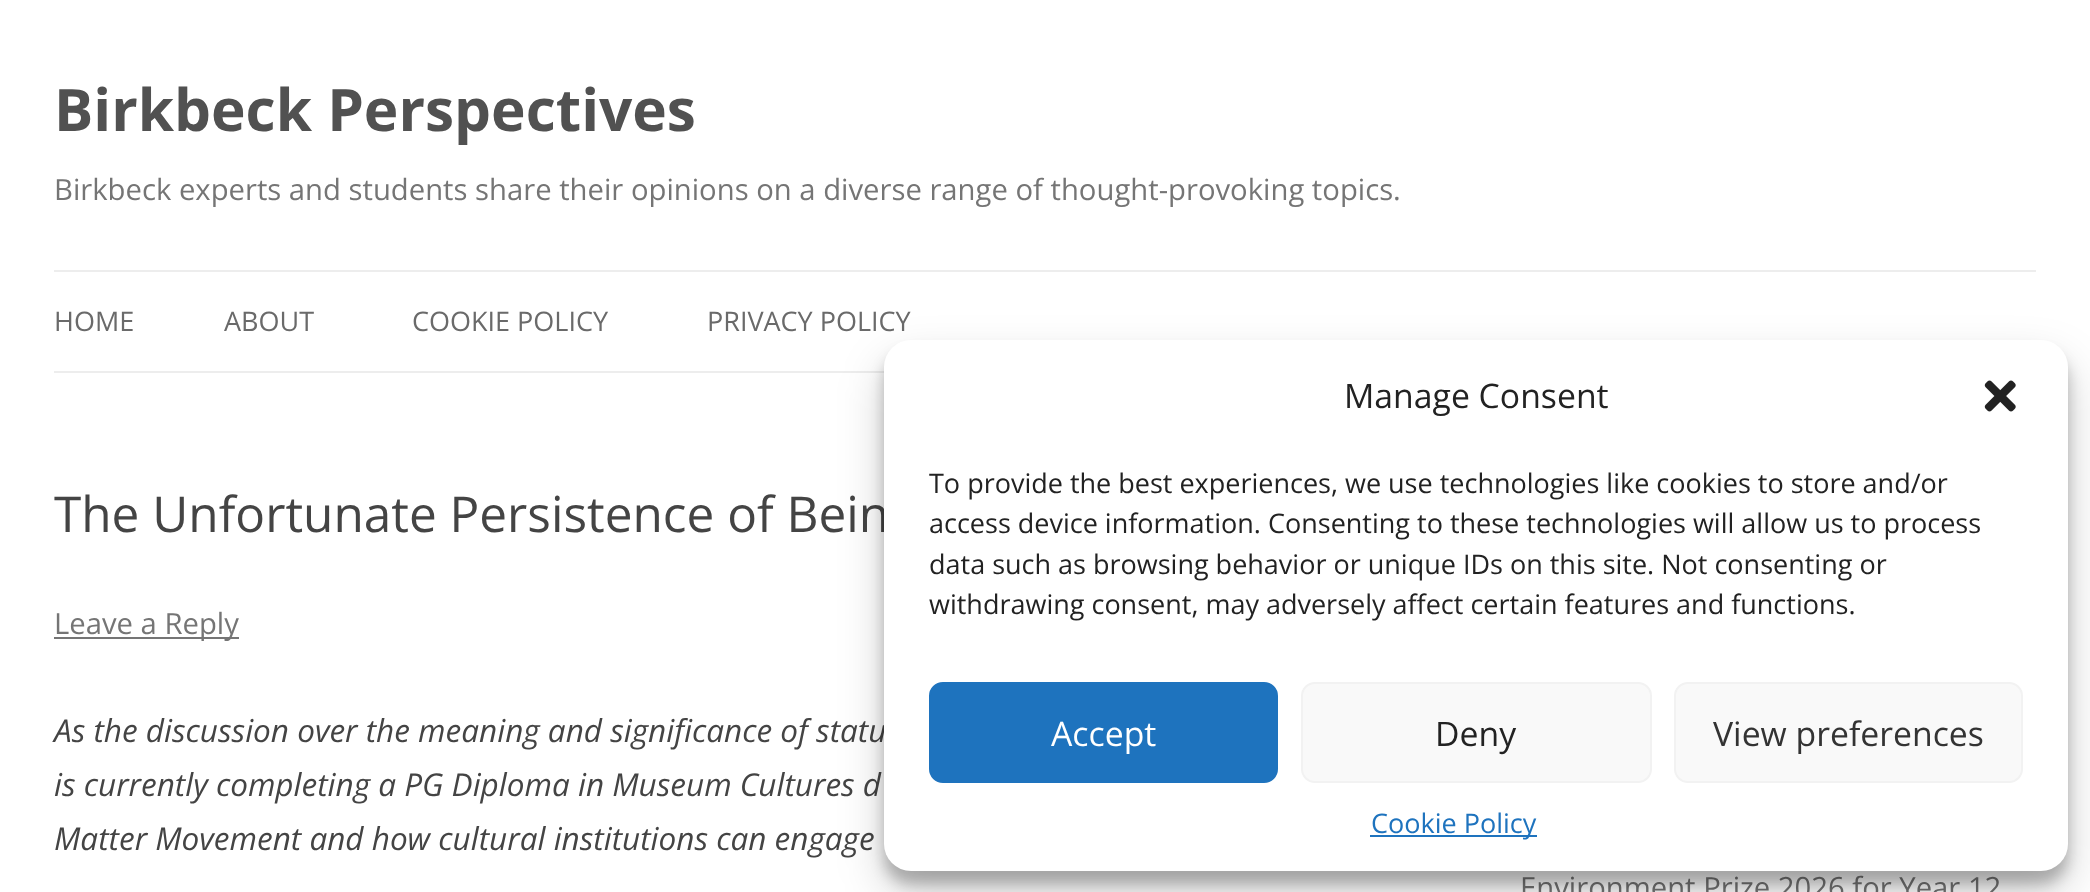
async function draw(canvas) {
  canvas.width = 2090;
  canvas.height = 892;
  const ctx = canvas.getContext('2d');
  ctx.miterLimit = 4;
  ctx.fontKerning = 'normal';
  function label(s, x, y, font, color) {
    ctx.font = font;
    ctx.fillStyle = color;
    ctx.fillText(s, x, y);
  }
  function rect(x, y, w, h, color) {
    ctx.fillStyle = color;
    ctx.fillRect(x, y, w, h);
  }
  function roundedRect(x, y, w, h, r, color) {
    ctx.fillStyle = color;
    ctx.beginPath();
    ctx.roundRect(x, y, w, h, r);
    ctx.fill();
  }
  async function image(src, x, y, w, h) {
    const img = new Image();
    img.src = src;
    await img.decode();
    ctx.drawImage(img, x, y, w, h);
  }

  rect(0, 0, 2090, 892, '#fff');
  label('Birkbeck Perspectives', 54, 131, 'bold 58.5px Open Sans', '#515151');
  label('Birkbeck experts and students share their opinions on a diverse range of thought-provoking topics.', 54, 200, '29.25px Open Sans', '#757575');
  rect(54, 270, 1982, 2, '#ededed');
  rect(54, 371, 830, 2, '#ededed');
  label('HOME', 54, 331, '27px Open Sans', '#6a6a6a');
  label('ABOUT', 224, 331, '27px Open Sans', '#6a6a6a');
  label('COOKIE POLICY', 412, 331, '27px Open Sans', '#6a6a6a');
  label('PRIVACY POLICY', 707, 331, '27px Open Sans', '#6a6a6a');
  label('The Unfortunate Persistence of Bein', 54, 532, '49.5px Open Sans', '#444');
  rect(54, 637, 185, 2, '#757575');
  label('Leave a Reply', 54, 634, '29.25px Open Sans', '#757575');
  label('As the discussion over the meaning and significance of statu', 54, 742, 'italic 31.5px Open Sans', '#444');
  label('is currently completing a PG Diploma in Museum Cultures d', 54, 796, 'italic 31.5px Open Sans', '#444');
  label('Matter Movement and how cultural institutions can engage', 54, 850, 'italic 31.5px Open Sans', '#444');
  label('Environment Prize 2026 for Year 12', 1520, 898, '29.25px Open Sans', '#757575');
  ctx.fillStyle = '#0000003b';
  ctx.filter = 'blur(7px)';
  ctx.beginPath();
  ctx.roundRect(884, 353, 1184, 531, 27);
  ctx.fill();
  ctx.filter = 'none';
  ctx.fillStyle = '#00000030';
  ctx.filter = 'blur(22.5px)';
  ctx.beginPath();
  ctx.roundRect(884, 362, 1184, 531, 27);
  ctx.fill();
  ctx.filter = 'none';
  roundedRect(884, 340, 1184, 531, 27, '#fff');
  label('Manage Consent', 1344, 408, '33.75px Open Sans', '#222');
  await image('assets/img1.png', 1984, 380, 32, 32);
  label('To provide the best experiences, we use technologies like cookies to store and/or', 929, 493, '27px Open Sans', '#222');
  label('access device information. Consenting to these technologies will allow us to process', 929, 533, '27px Open Sans', '#222');
  label('data such as browsing behavior or unique IDs on this site. Not consenting or', 929, 574, '27px Open Sans', '#222');
  label('withdrawing consent, may adversely affect certain features and functions.', 929, 614, '27px Open Sans', '#222');
  ctx.fillStyle = '#1e73be';
  ctx.beginPath();
  ctx.roundRect(930, 683, 347, 99, 13);
  ctx.fill();
  ctx.strokeStyle = '#1e73be';
  ctx.lineWidth = 2;
  ctx.stroke();
  label('Accept', 1051, 746, '33.75px Open Sans', '#fff');
  ctx.fillStyle = '#f9f9f9';
  ctx.beginPath();
  ctx.roundRect(1302, 683, 349, 99, 13);
  ctx.fill();
  ctx.strokeStyle = '#f2f2f2';
  ctx.stroke();
  label('Deny', 1435, 746, '33.75px Open Sans', '#222');
  ctx.fillStyle = '#f9f9f9';
  ctx.beginPath();
  ctx.roundRect(1675, 683, 347, 99, 13);
  ctx.fill();
  ctx.stroke();
  label('View preferences', 1713, 746, '33.75px Open Sans', '#333');
  rect(1370, 835, 167, 2, '#1e73be');
  label('Cookie Policy', 1371, 833, '27px Open Sans', '#1e73be');
}

draw(document.querySelector('canvas'));
